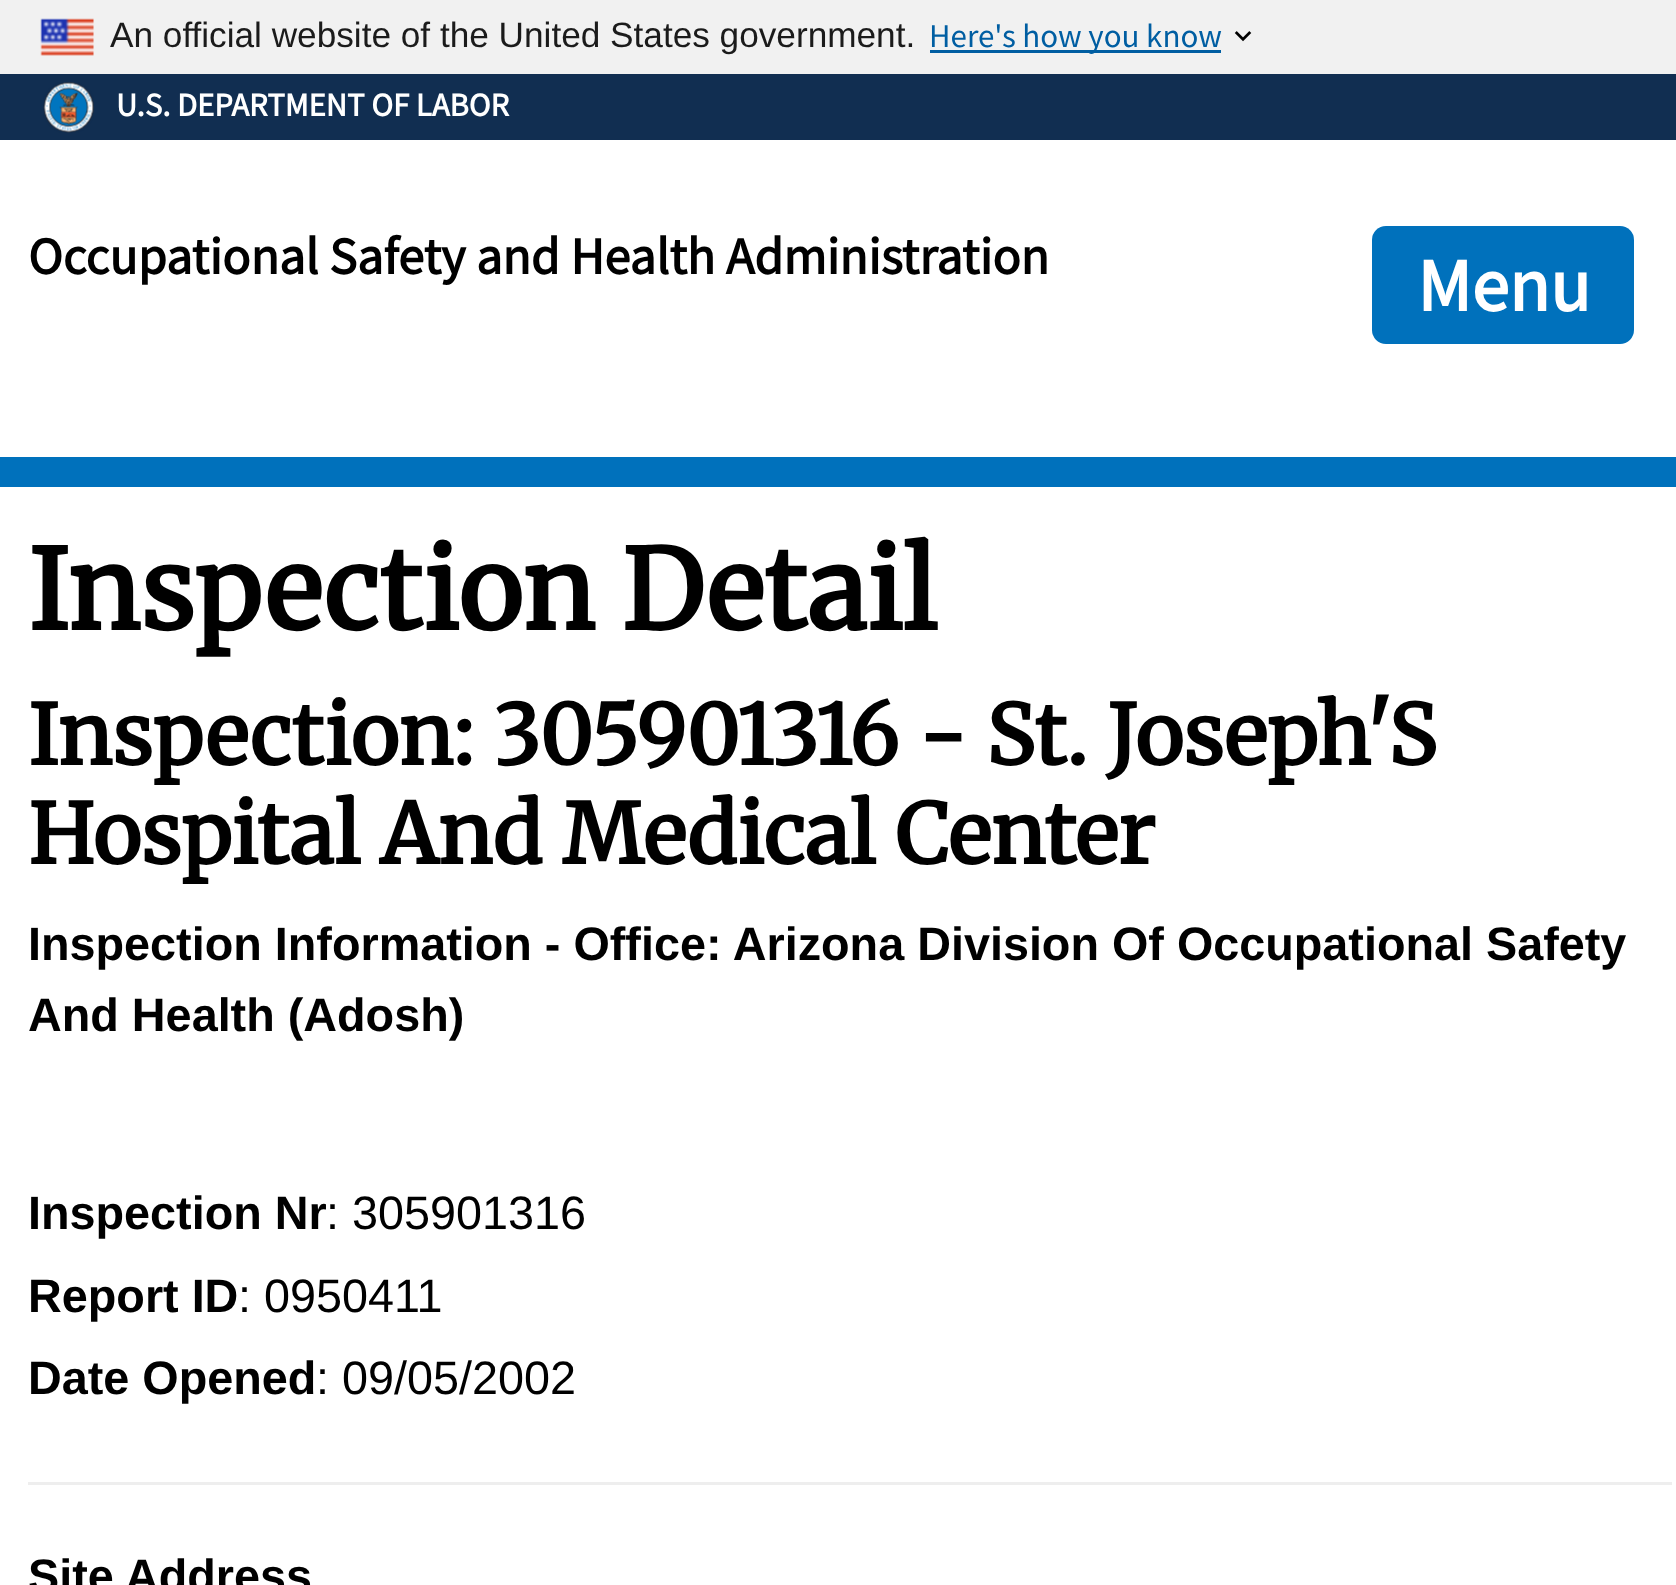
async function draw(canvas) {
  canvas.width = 1676;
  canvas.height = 1585;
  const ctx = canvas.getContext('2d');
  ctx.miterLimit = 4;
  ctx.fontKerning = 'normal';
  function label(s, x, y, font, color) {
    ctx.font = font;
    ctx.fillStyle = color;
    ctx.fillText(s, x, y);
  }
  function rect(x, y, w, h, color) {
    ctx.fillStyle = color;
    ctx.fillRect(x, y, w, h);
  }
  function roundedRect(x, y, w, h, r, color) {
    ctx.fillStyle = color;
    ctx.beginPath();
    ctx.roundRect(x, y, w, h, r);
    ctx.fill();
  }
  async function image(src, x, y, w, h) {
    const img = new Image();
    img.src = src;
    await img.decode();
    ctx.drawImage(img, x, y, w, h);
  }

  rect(0, 0, 1676, 1585, '#fff');
  rect(0, 0, 1676, 74, '#f1f1f1');
  await image('assets/img1.png', 40, 18, 54, 38);
  label('An official website of the United States government.', 110, 47, '35.2px Liberation Sans', '#1b1b1b');
  await image('assets/img2.png', 1234, 31, 18, 11);
  rect(930, 50, 291, 3, '#005ea2');
  label('Here\'s how you know', 929, 47, '33px Source Sans Pro', '#005ea2');
  rect(0, 74, 1676, 66, '#112e51');
  await image('assets/img3.png', 43, 82, 51, 51);
  label('U.S. DEPARTMENT OF LABOR', 116, 116, 'bold 32.75px Source Sans Pro', '#fff');
  label('Occupational Safety and Health Administration', 28, 274, 'bold 52.25px Source Sans Pro', '#000');
  roundedRect(1372, 226, 262, 118, 14, '#0071bc');
  label('Menu', 1417, 311, 'bold 75px Source Sans Pro', '#fff');
  rect(0, 457, 1676, 30, '#0071bc');
  label('Inspection Detail', 28, 630, 'bold 110px Merriweather', '#000');
  label('Inspection: 305901316 - St. Joseph\'S', 28, 765, 'bold 82.5px Merriweather', '#000');
  label('Hospital And Medical Center', 28, 864, 'bold 82.5px Merriweather', '#000');
  label('Inspection Information - Office: Arizona Division Of Occupational Safety', 28, 960, 'bold 46.75px Liberation Sans', '#000');
  label('And Health (Adosh)', 28, 1031, 'bold 46.75px Liberation Sans', '#000');
  label('Inspection Nr', 28, 1229, 'bold 46.75px Liberation Sans', '#000');
  label(': 305901316', 326, 1229, '46.75px Liberation Sans', '#000');
  label('Report ID', 28, 1312, 'bold 46.75px Liberation Sans', '#000');
  label(': 0950411', 238, 1312, '46.75px Liberation Sans', '#000');
  label('Date Opened', 28, 1394, 'bold 46.75px Liberation Sans', '#000');
  label(': 09/05/2002', 316, 1394, '46.75px Liberation Sans', '#000');
  rect(28, 1482, 1644, 3, '#eee');
  label('Site Address', 28, 1592, 'bold 46.75px Liberation Sans', '#000');
}

draw(document.querySelector('canvas'));
